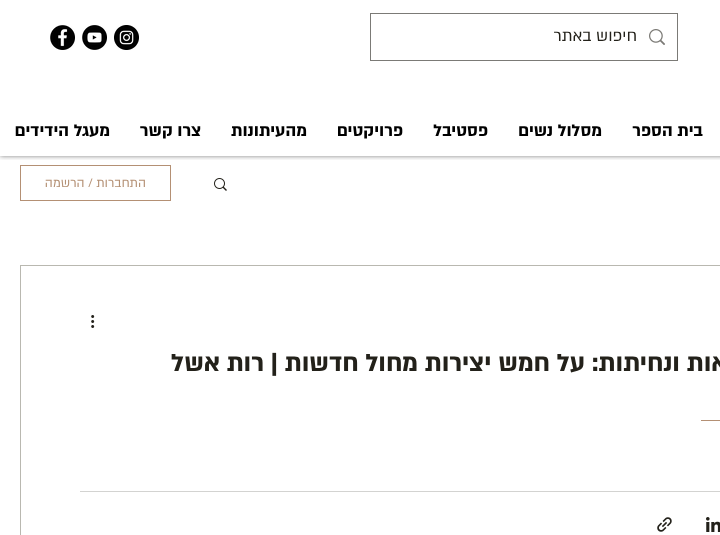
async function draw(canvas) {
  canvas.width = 720;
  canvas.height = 535;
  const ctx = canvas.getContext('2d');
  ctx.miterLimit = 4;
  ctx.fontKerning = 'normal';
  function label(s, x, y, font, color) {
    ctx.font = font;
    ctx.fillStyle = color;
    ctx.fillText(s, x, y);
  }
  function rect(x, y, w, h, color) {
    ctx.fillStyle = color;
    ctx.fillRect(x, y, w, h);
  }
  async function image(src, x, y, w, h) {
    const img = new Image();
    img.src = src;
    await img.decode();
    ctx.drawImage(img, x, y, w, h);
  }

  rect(0, 0, 720, 535, '#fff');
  ctx.save();
  ctx.beginPath();
  ctx.rect(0, 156, 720, 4);
  ctx.clip();
  ctx.fillStyle = '#00000080';
  ctx.filter = 'blur(2.5px)';
  ctx.beginPath();
  ctx.rect(0, 0, 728, 156);
  ctx.fill();
  ctx.filter = 'none';
  ctx.restore();
  ctx.strokeStyle = '#7b7a76';
  ctx.strokeRect(370.5, 13.5, 307, 47);
  await image('assets/img1.png', 649, 29, 16, 16);
  ctx.direction = 'rtl';
  label('חיפוש באתר', 637, 41, '18px "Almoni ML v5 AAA"', '#23211a');
  await image('assets/img2.png', 114, 25, 25, 25);
  await image('assets/img3.png', 82, 25, 25, 25);
  await image('assets/img4.png', 50, 25, 25, 25);
  label('בית הספר', 703, 136, 'bold 19px "Almoni ML v5 AAA"', '#000');
  label('מסלול נשים', 602, 136, 'bold 19px "Almoni ML v5 AAA"', '#000');
  label('פסטיבל', 488, 136, 'bold 19px "Almoni ML v5 AAA"', '#000');
  label('פרויקטים', 403, 136, 'bold 19px "Almoni ML v5 AAA"', '#000');
  label('מהעיתונות', 307, 136, 'bold 19px "Almoni ML v5 AAA"', '#000');
  label('צרו קשר', 201, 136, 'bold 19px "Almoni ML v5 AAA"', '#000');
  label('מעגל הידידים', 110, 136, 'bold 19px "Almoni ML v5 AAA"', '#000');
  await image('assets/img5.png', 214, 178, 13, 13);
  ctx.strokeStyle = '#b49074';
  ctx.strokeRect(20.5, 165.5, 150, 35);
  label('התחברות / הרשמה', 146, 187, '14px "Almoni ML v5 AAA"', '#b49074');
  ctx.strokeStyle = '#b9b8b0';
  ctx.strokeRect(20.5, 265.5, 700, 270);
  await image('assets/img6.png', 91, 315, 4, 13);
  label('המראות ונחיתות: על חמש יצירות מחול חדשות | רות אשל', 772, 371, 'bold 28px "Almoni ML v5 AAA"', '#23211a');
  rect(701, 420, 19, 1, '#b49074');
  rect(80, 491, 640, 1, '#d3d3d1');
  await image('assets/img7.png', 706, 517, 14, 15);
  await image('assets/img8.png', 657, 517, 15, 15);
}

draw(document.querySelector('canvas'));
